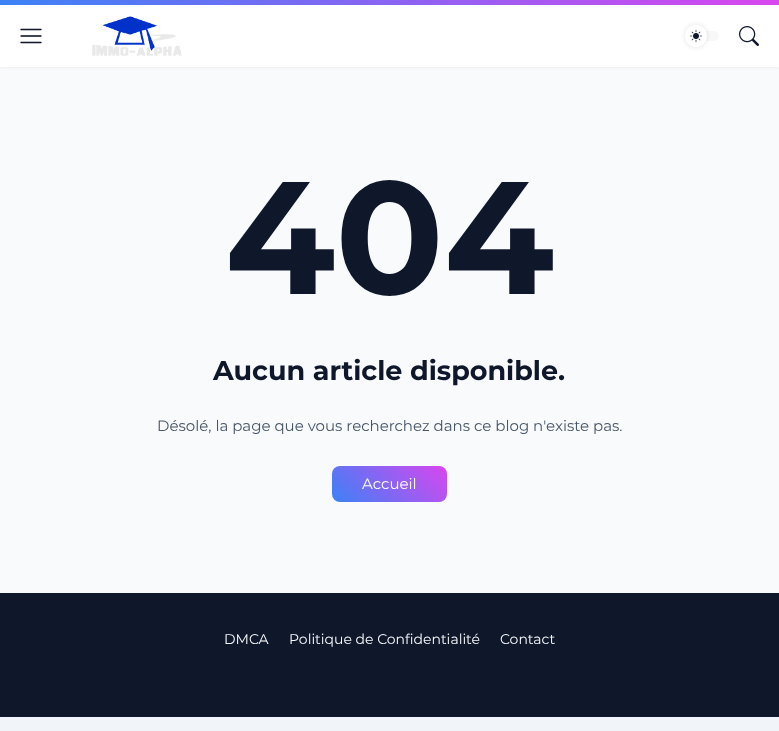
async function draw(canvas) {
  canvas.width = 779;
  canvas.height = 731;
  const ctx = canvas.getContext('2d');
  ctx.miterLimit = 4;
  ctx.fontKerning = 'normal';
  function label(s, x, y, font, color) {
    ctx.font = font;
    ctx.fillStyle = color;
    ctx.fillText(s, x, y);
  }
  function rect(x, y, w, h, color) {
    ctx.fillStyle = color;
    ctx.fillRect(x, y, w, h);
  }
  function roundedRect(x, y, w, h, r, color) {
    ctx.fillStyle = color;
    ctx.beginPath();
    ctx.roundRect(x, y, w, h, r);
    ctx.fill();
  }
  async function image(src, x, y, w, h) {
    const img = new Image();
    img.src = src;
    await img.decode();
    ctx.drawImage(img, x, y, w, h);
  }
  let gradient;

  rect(0, 0, 779, 731, '#f1f5f9');
  rect(0, 67, 779, 526, '#f8fafc');
  ctx.fillStyle = '#0f172a0d';
  ctx.filter = 'blur(1px)';
  ctx.beginPath();
  ctx.rect(0, 1, 779, 67);
  ctx.fill();
  ctx.filter = 'none';
  gradient = ctx.createLinearGradient(194, 199, 586, -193);
  gradient.addColorStop(0, '#3b82f6');
  gradient.addColorStop(1, '#d946ef');
  ctx.fillStyle = gradient;
  ctx.fillRect(0, 0, 779, 5);
  rect(0, 5, 779, 62, '#fff');
  await image('assets/img1.png', 20, 28, 22, 16);
  await image('assets/img2.png', 92, 16, 90, 40);
  roundedRect(685, 31, 34, 10, 5, '#f8f8f9');
  ctx.fillStyle = '#0f172a1f';
  ctx.filter = 'blur(2.5px)';
  ctx.beginPath();
  ctx.roundRect(685, 25, 22, 22, 11);
  ctx.fill();
  ctx.filter = 'none';
  ctx.fillStyle = '#fff';
  ctx.beginPath();
  ctx.arc(696, 36, 11, 0, 2 * Math.PI);
  ctx.fill();
  await image('assets/img3.png', 690, 30, 12, 12);
  await image('assets/img4.png', 739, 26, 20, 20);
  label('404', 225, 294, 'bold 160px Montserrat', '#0f172a');
  label('Aucun article disponible.', 213, 380, 'bold 27px Montserrat', '#0f172a');
  label('Désolé, la page que vous recherchez dans ce blog n\'existe pas.', 157, 431, '15px Montserrat', '#475569');
  gradient = ctx.createLinearGradient(352, 522, 427, 446);
  gradient.addColorStop(0, '#3b82f6');
  gradient.addColorStop(1, '#d946ef');
  ctx.fillStyle = gradient;
  ctx.beginPath();
  ctx.roundRect(332, 466, 115, 36, 8);
  ctx.fill();
  label('Accueil', 362, 489, '15px Montserrat', '#fff');
  rect(0, 593, 779, 124, '#0f172a');
  label('DMCA', 224, 644, '14px Montserrat', '#f8fafc');
  label('Politique de Confidentialité', 289, 644, '14px Montserrat', '#f8fafc');
  label('Contact', 500, 644, '14px Montserrat', '#f8fafc');
}

draw(document.querySelector('canvas'));
